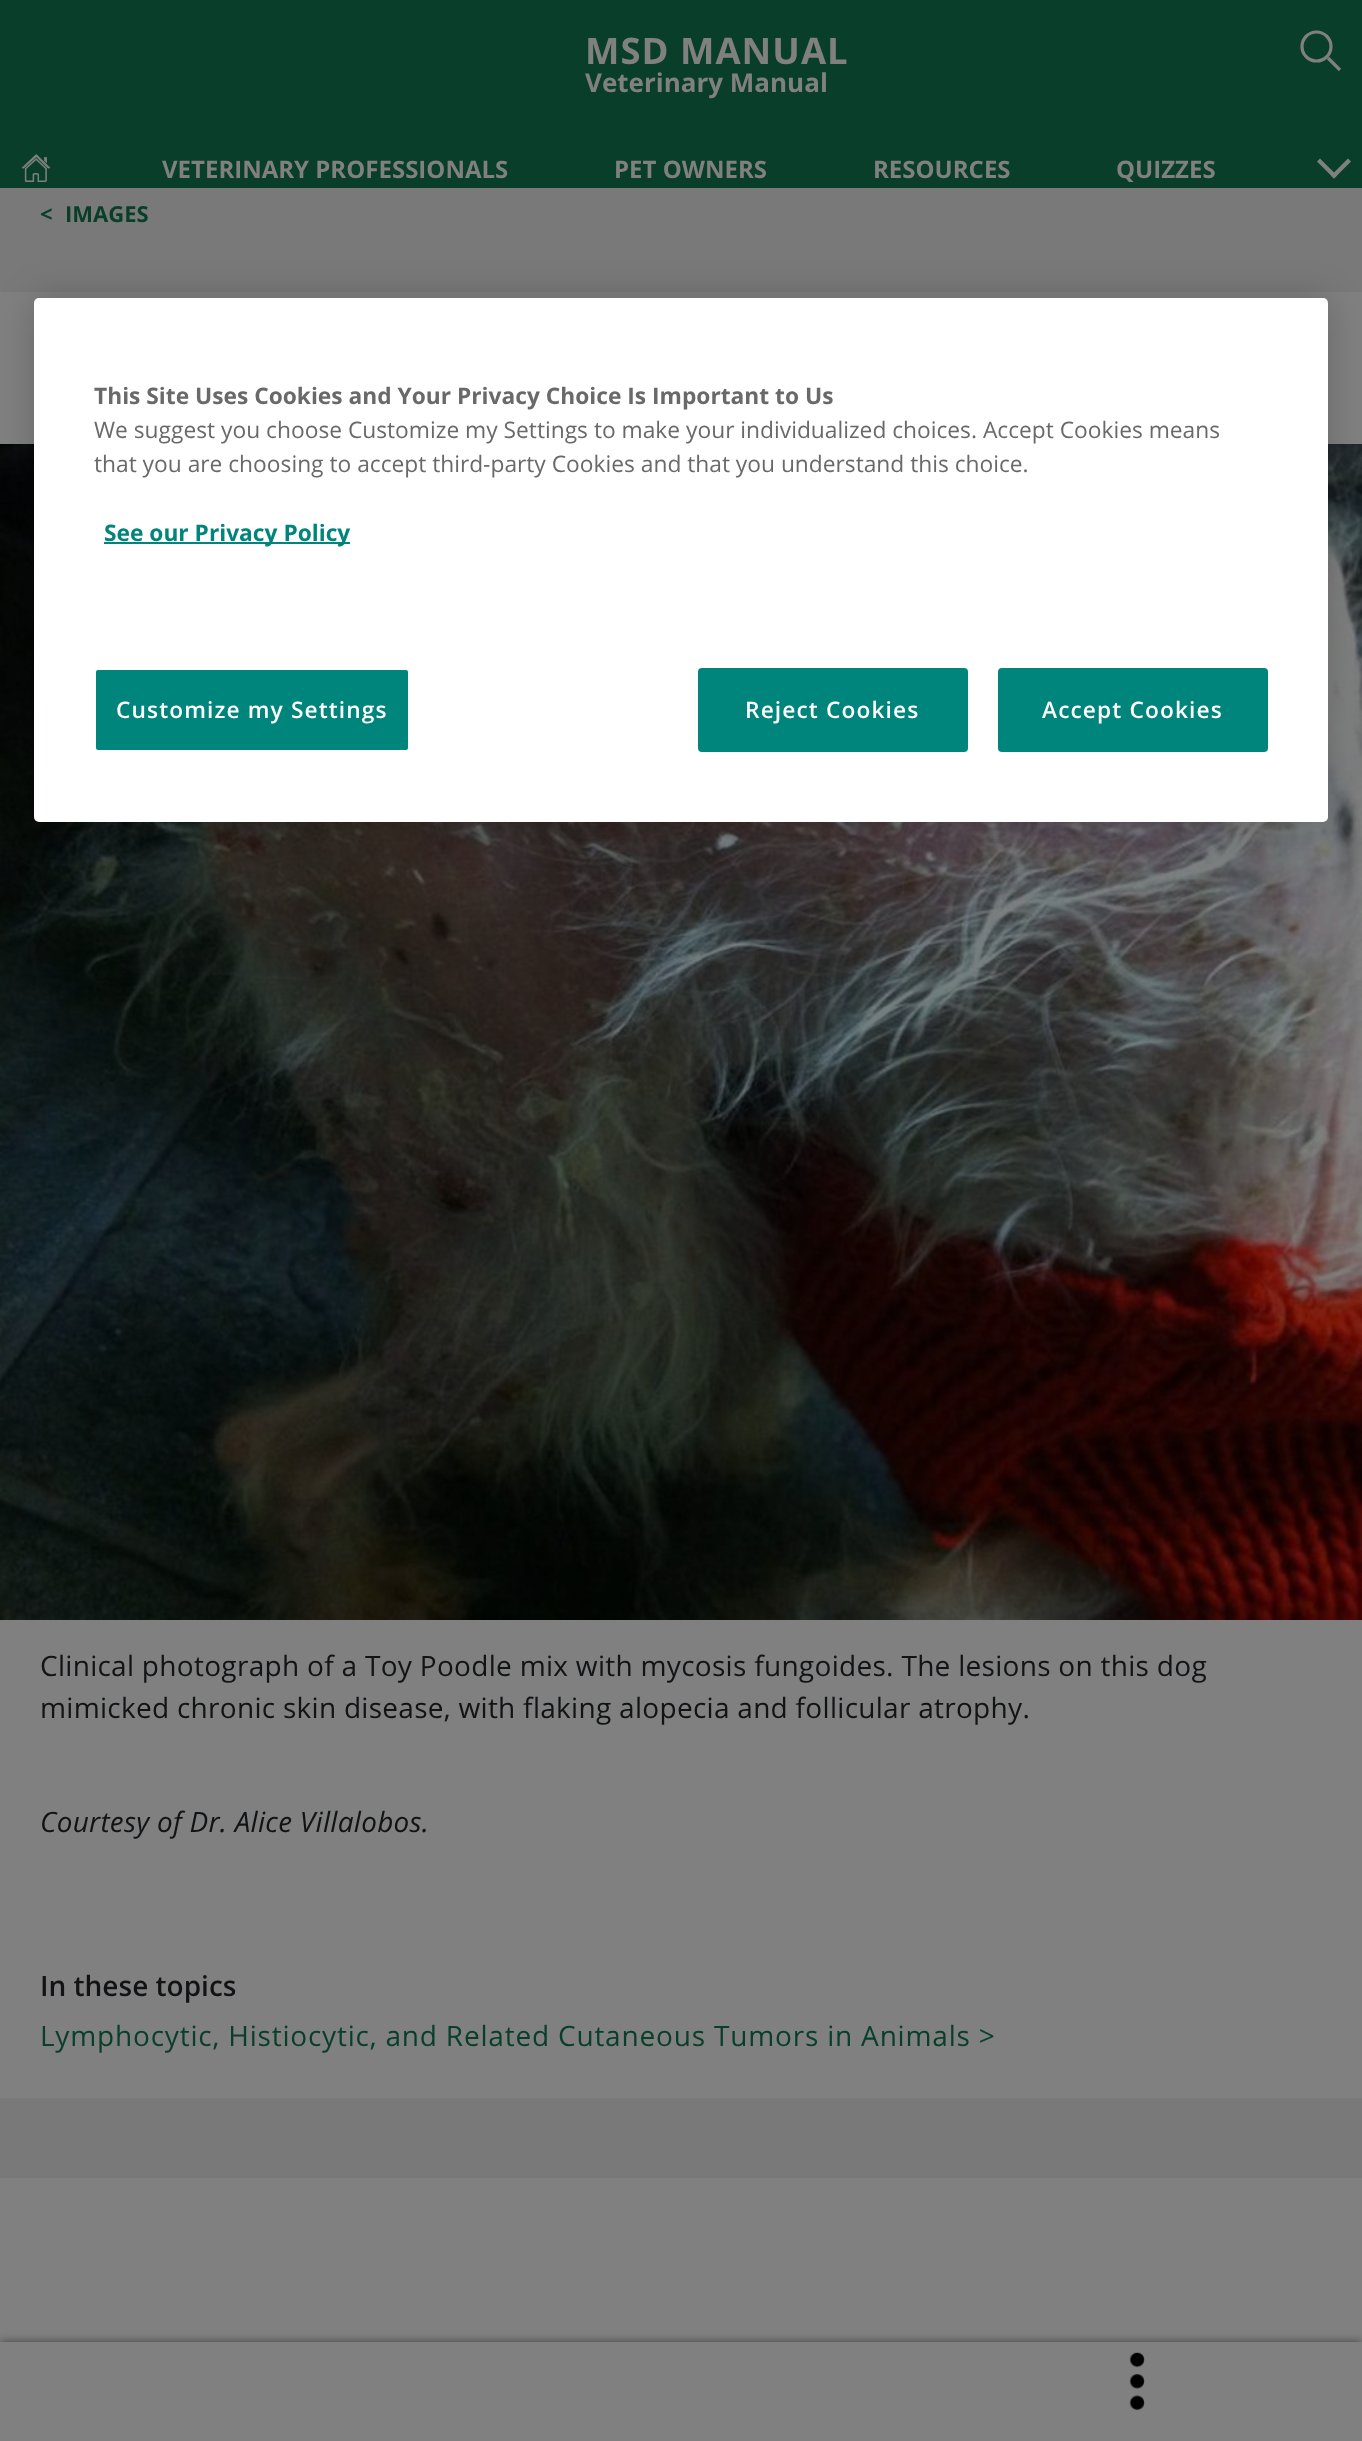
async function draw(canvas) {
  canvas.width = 1362;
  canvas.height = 2441;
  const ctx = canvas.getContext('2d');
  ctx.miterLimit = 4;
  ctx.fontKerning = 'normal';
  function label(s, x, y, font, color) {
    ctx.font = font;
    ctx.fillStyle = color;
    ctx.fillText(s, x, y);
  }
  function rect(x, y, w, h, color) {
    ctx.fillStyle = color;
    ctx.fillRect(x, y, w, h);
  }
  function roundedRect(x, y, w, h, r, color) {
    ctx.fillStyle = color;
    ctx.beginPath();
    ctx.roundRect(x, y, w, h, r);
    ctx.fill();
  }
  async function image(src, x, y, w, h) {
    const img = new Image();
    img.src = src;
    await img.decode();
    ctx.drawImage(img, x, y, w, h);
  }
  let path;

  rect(0, 0, 1362, 2441, '#797979');
  rect(0, 0, 1362, 188, '#083e2a');
  ctx.letterSpacing = '1px';
  label('MSD MANUAL', 585, 64, 'bold 36.5px Open Sans', '#808080');
  ctx.letterSpacing = '0px';
  label('Veterinary Manual', 585, 92, 'bold 26px Open Sans', '#808080');
  ctx.beginPath();
  ctx.arc(1316.5, 46.5, 14.5, 0, 2 * Math.PI);
  ctx.strokeStyle = '#808080';
  ctx.lineWidth = 3.2;
  ctx.stroke();
  path = new Path2D('M1340 70L1328 58');
  ctx.stroke(path);
  await image('assets/img1.png', 21, 154, 30, 28);
  label('VETERINARY PROFESSIONALS', 162, 178, 'bold 24px Open Sans', '#808080');
  label('PET OWNERS', 614, 178, 'bold 24px Open Sans', '#808080');
  label('RESOURCES', 873, 178, 'bold 24px Open Sans', '#808080');
  label('QUIZZES', 1116, 178, 'bold 24px Open Sans', '#808080');
  path = new Path2D('M1348 158.5L1351 161.5L1334 178.5L1331 175.5Z');
  ctx.fill(path);
  path = new Path2D('M1320 158.5L1337 175.5L1334 178.5L1317 161.5Z');
  ctx.fill(path);
  label('<', 40, 222, 'bold 22px Open Sans', '#083e2a');
  label('IMAGES', 65, 222, 'bold 22px Open Sans', '#083e2a');
  rect(0, 292, 1362, 1806, '#808080');
  await image('assets/img2.png', 0, 444, 1362, 1176);
  ctx.letterSpacing = '0.28px';
  label('Clinical photograph of a Toy Poodle mix with mycosis fungoides. The lesions on this dog', 40, 1676, '28px Open Sans', '#111315');
  label('mimicked chronic skin disease, with flaking alopecia and follicular atrophy.', 40, 1718, '28px Open Sans', '#111315');
  label('Courtesy of Dr. Alice Villalobos.', 40, 1832, 'italic 28px Open Sans', '#111315');
  ctx.letterSpacing = '0px';
  label('In these topics', 40, 1996, '600 28px Open Sans', '#111315');
  ctx.letterSpacing = '0.8px';
  label('Lymphocytic, Histiocytic, and Related Cutaneous Tumors in Animals >', 40, 2046, '28px Open Sans', '#083e2a');
  rect(0, 2178, 1362, 164, '#808080');
  ctx.fillStyle = '#00000080';
  ctx.filter = 'blur(5px)';
  ctx.beginPath();
  ctx.rect(0, 2342, 1362, 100);
  ctx.fill();
  ctx.filter = 'none';
  rect(0, 2342, 1362, 99, '#808080');
  await image('assets/img3.png', 1129, 2352, 16, 59);
  ctx.fillStyle = '#00000033';
  ctx.filter = 'blur(18px)';
  ctx.beginPath();
  ctx.roundRect(34, 298, 1294, 524, 5);
  ctx.fill();
  ctx.filter = 'none';
  roundedRect(34, 298, 1294, 524, 5, '#fff');
  ctx.letterSpacing = '0px';
  label('This Site Uses Cookies and Your Privacy Choice Is Important to Us', 94, 404, 'bold 22.75px Open Sans', '#696969');
  label('We suggest you choose Customize my Settings to make your individualized choices. Accept Cookies means', 94, 438, '22.75px Open Sans', '#696969');
  label('that you are choosing to accept third-party Cookies and that you understand this choice.', 94, 472, '22.75px Open Sans', '#696969');
  rect(104, 542, 246, 2, '#00857c');
  label('See our Privacy Policy', 104, 541, 'bold 22.75px Open Sans', '#00857c');
  ctx.beginPath();
  ctx.roundRect(95, 669, 314, 82, 3);
  ctx.fill();
  ctx.strokeStyle = '#fff';
  ctx.lineWidth = 2;
  ctx.stroke();
  ctx.letterSpacing = '1.1px';
  label('Customize my Settings', 116, 718, '600 22.75px Open Sans', '#fff');
  ctx.fillStyle = '#00857c';
  ctx.beginPath();
  ctx.roundRect(699, 669, 268, 82, 3);
  ctx.fill();
  ctx.strokeStyle = '#00857c';
  ctx.stroke();
  label('Reject Cookies', 745, 718, '600 22.75px Open Sans', '#fff');
  ctx.fillStyle = '#00857c';
  ctx.beginPath();
  ctx.roundRect(999, 669, 268, 82, 3);
  ctx.fill();
  ctx.stroke();
  label('Accept Cookies', 1042, 718, '600 22.75px Open Sans', '#fff');
}

draw(document.querySelector('canvas'));
